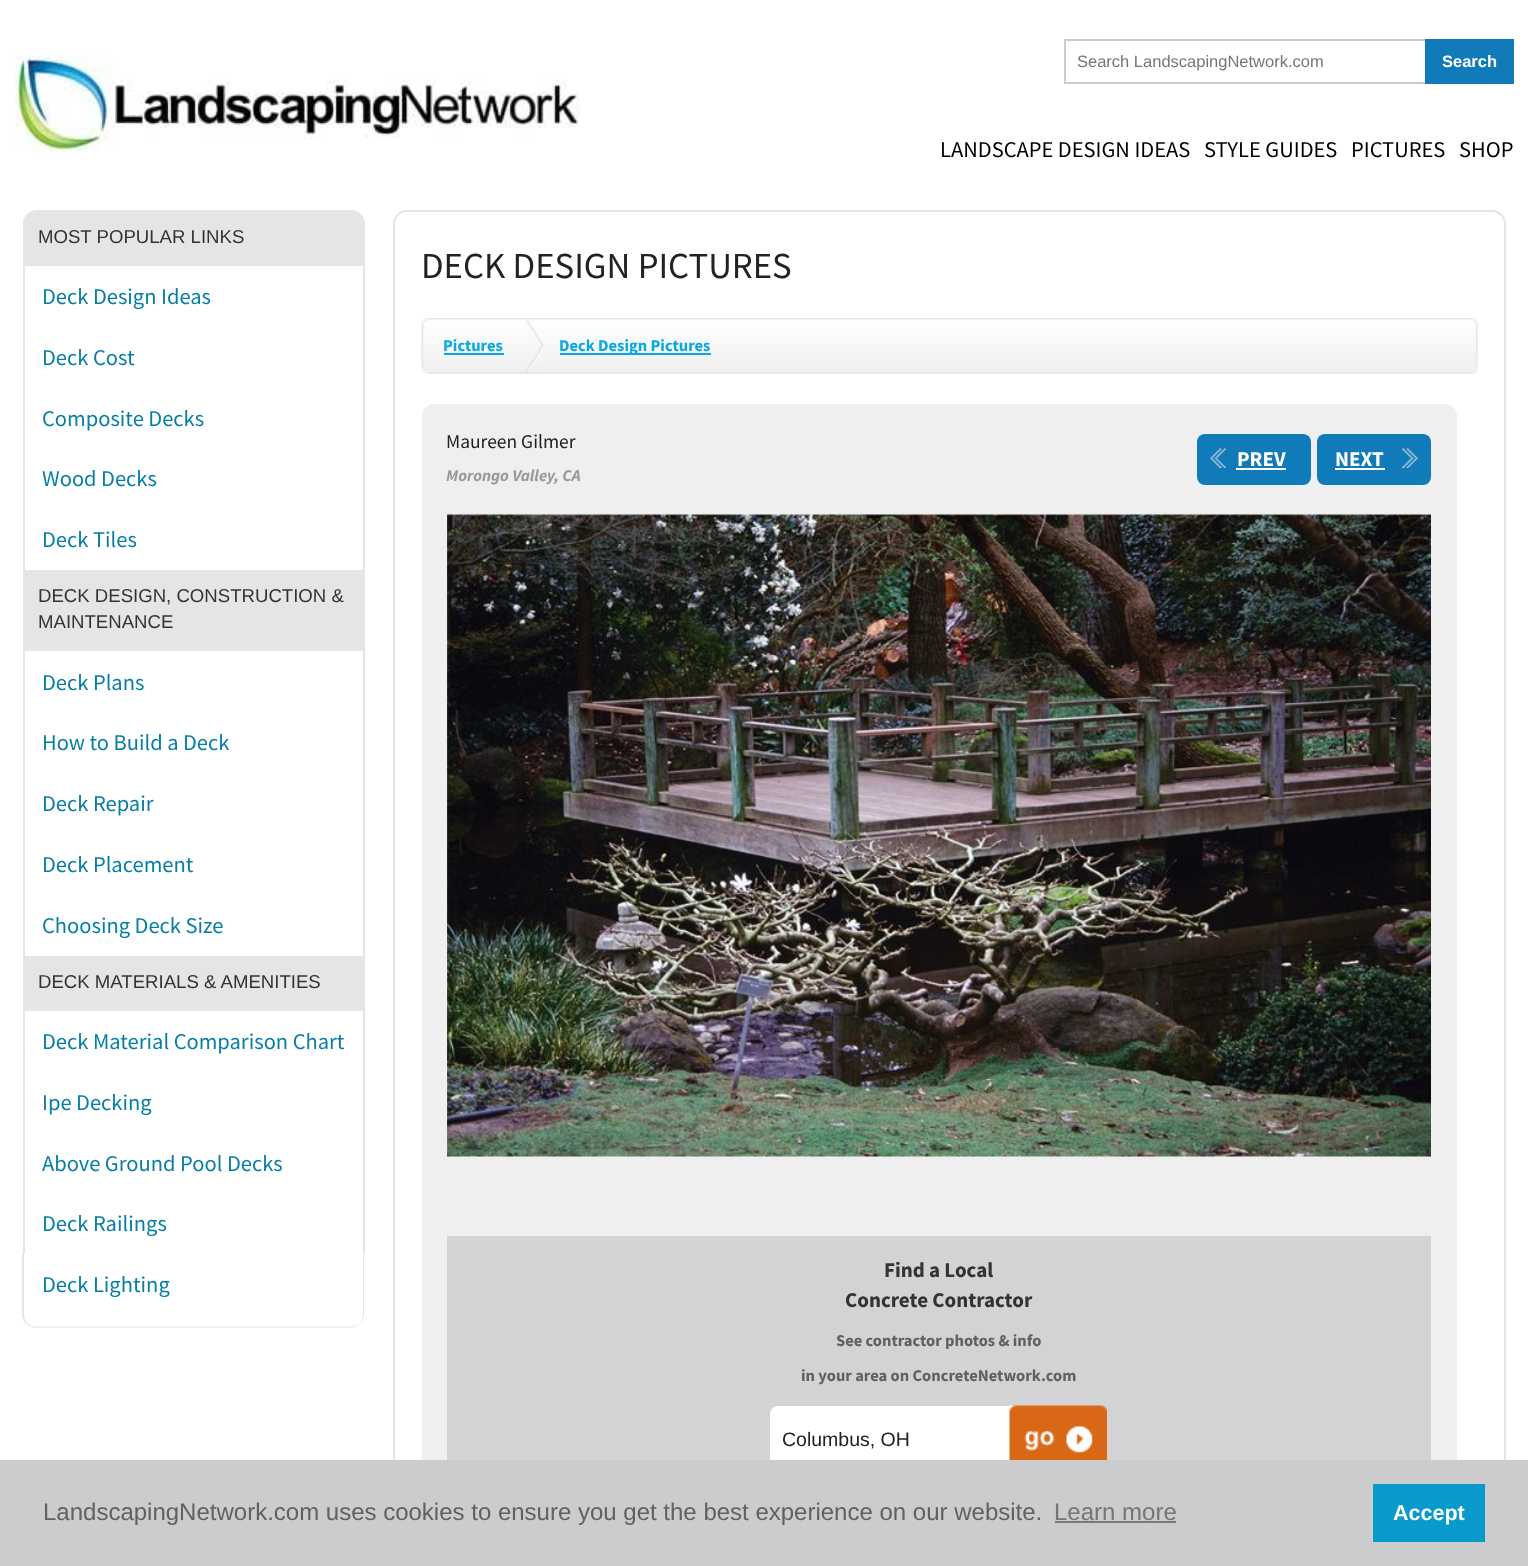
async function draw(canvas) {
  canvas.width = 1528;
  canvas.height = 1566;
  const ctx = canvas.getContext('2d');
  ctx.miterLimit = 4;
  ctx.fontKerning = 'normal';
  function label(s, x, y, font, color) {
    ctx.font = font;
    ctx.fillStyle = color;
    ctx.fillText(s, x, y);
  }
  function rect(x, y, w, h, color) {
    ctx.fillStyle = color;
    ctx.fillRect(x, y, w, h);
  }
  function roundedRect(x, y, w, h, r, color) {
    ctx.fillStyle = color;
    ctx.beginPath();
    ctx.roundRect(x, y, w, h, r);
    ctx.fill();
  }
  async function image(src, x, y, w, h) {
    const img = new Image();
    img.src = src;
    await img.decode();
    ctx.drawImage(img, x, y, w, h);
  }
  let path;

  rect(0, 0, 1528, 1566, '#fff');
  await image('assets/img1.png', 15, 55, 565, 98);
  ctx.strokeStyle = '#ccc';
  ctx.lineWidth = 2;
  ctx.strokeRect(1065, 40, 380, 43);
  label('Search LandscapingNetwork.com', 1077, 67, '16.5px Liberation Sans', '#757575');
  rect(1425, 39, 89, 45, '#117ab9');
  label('Search', 1442, 67, 'bold 16.5px Liberation Sans', '#fff');
  label('LANDSCAPE DESIGN IDEAS', 940, 157, '22.5px Source Sans Pro', '#000');
  label('STYLE GUIDES', 1204, 157, '22.5px Source Sans Pro', '#000');
  label('PICTURES', 1351, 157, '22.5px Source Sans Pro', '#000');
  label('SHOP', 1459, 157, '22.5px Source Sans Pro', '#000');
  ctx.fillStyle = '#e5e5e5';
  ctx.beginPath();
  ctx.roundRect(23, 210, 342, 56, [14, 14, 0, 0]);
  ctx.fill();
  label('MOST POPULAR LINKS', 38, 243, '18.6px Liberation Sans', '#333');
  rect(363, 266, 2, 304, '#e5e5e5');
  rect(23, 266, 2, 304, '#e5e5e5');
  label('Deck Design Ideas', 42, 304, '22.5px Source Sans Pro', '#067ea5');
  label('Deck Cost', 42, 365, '22.5px Source Sans Pro', '#067ea5');
  label('Composite Decks', 42, 426, '22.5px Source Sans Pro', '#067ea5');
  label('Wood Decks', 42, 486, '22.5px Source Sans Pro', '#067ea5');
  label('Deck Tiles', 42, 547, '22.5px Source Sans Pro', '#067ea5');
  rect(23, 570, 342, 81, '#e5e5e5');
  label('DECK DESIGN, CONSTRUCTION &', 38, 602, '18.6px Liberation Sans', '#333');
  label('MAINTENANCE', 38, 628, '18.6px Liberation Sans', '#333');
  rect(363, 651, 2, 305, '#e5e5e5');
  rect(23, 651, 2, 305, '#e5e5e5');
  label('Deck Plans', 42, 690, '22.5px Source Sans Pro', '#067ea5');
  label('How to Build a Deck', 42, 750, '22.5px Source Sans Pro', '#067ea5');
  label('Deck Repair', 42, 811, '22.5px Source Sans Pro', '#067ea5');
  label('Deck Placement', 42, 872, '22.5px Source Sans Pro', '#067ea5');
  label('Choosing Deck Size', 42, 933, '22.5px Source Sans Pro', '#067ea5');
  rect(23, 956, 342, 55, '#e5e5e5');
  label('DECK MATERIALS & AMENITIES', 38, 988, '18.6px Liberation Sans', '#333');
  rect(363, 1011, 2, 243, '#e5e5e5');
  rect(23, 1011, 2, 243, '#e5e5e5');
  label('Deck Material Comparison Chart', 42, 1049, '22.5px Source Sans Pro', '#067ea5');
  label('Ipe Decking', 42, 1110, '22.5px Source Sans Pro', '#067ea5');
  label('Above Ground Pool Decks', 42, 1171, '22.5px Source Sans Pro', '#067ea5');
  label('Deck Railings', 42, 1231, '22.5px Source Sans Pro', '#067ea5');
  ctx.fillStyle = '#e5e5e5';
  path = new Path2D('M364 1254H363V1314C363 1318 362 1320 360 1323C363 1321 364 1317 364 1314Z');
  ctx.fill(path);
  ctx.fillStyle = '#efefef';
  path = new Path2D('M33 1328C30 1327 28 1325 26 1324L27 1323C30 1325 32 1326 36 1326H351C354 1326 358 1325 360 1323C359 1325 357 1327 354 1328Z');
  ctx.fill(path);
  ctx.fillStyle = '#e5e5e5';
  path = new Path2D('M24 1254V1314C24 1318 25 1320 27 1323L26 1324C25 1322 23 1320 22 1317V1254Z');
  ctx.fill(path);
  label('Deck Lighting', 42, 1292, '22.5px Source Sans Pro', '#067ea5');
  path = new Path2D('M407 211H1492C1499 211 1505 217 1505 224V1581H394V224C394 217 400 211 407 211Z');
  ctx.strokeStyle = '#e5e5e5';
  ctx.stroke(path);
  label('DECK DESIGN PICTURES', 421, 278, '36.75px Source Sans Pro', '#222');
  await image('assets/img2.png', 421, 318, 1057, 56);
  await image('assets/img3.png', 429, 318, 1049, 56);
  label('Pictures', 443, 351, 'bold 16.5px Source Sans Pro', '#07aae0');
  rect(444, 353, 60, 2, '#07aae0');
  await image('assets/img4.png', 525, 318, 18, 56);
  rect(560, 353, 151, 2, '#07aae0');
  label('Deck Design Pictures', 559, 351, 'bold 16.5px Source Sans Pro', '#07aae0');
  roundedRect(422, 404, 1035, 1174, 12, '#efefef');
  label('Maureen Gilmer', 446, 448, '19.5px Source Sans Pro', '#222');
  label('Morongo Valley, CA', 446, 481, 'italic bold 16.5px Source Sans Pro', '#999');
  roundedRect(1197, 434, 114, 51, 8, '#117ab9');
  await image('assets/img5.png', 1210, 448, 16, 20);
  label('PREV', 1237, 466, 'bold 21px Source Sans Pro', '#fff');
  rect(1236, 468, 50, 2, '#fff');
  roundedRect(1317, 434, 114, 51, 8, '#117ab9');
  label('NEXT', 1335, 466, 'bold 21px Source Sans Pro', '#fff');
  rect(1335, 468, 50, 2, '#fff');
  await image('assets/img6.png', 1402, 448, 16, 20);
  await image('assets/img7.png', 447, 514, 984, 643);
  rect(447, 1236, 984, 224, '#d3d3d3');
  label('Find a Local', 884, 1277, 'bold 21px Source Sans Pro', '#333');
  label('Concrete Contractor', 845, 1307, 'bold 21px Source Sans Pro', '#333');
  label('See contractor photos & info', 836, 1346, 'bold 16.5px Source Sans Pro', '#616161');
  label('in your area on ConcreteNetwork.com', 801, 1381, 'bold 16.5px Source Sans Pro', '#616161');
  roundedRect(770, 1406, 247, 67, 8, '#fff');
  label('Columbus, OH', 782, 1446, '19.5px Liberation Sans', '#222');
  await image('assets/img8.png', 1009, 1405, 98, 55);
  rect(0, 1460, 1528, 106, '#ccc');
  label('LandscapingNetwork.com uses cookies to ensure you get the best experience on our website.', 43, 1520, '24px Liberation Sans', '#616161');
  label('Learn more', 1054, 1520, '24px Liberation Sans', '#757575');
  rect(1055, 1521, 121, 2, '#7a7a7a');
  rect(1373, 1484, 112, 58, '#079acb');
  label('Accept', 1393, 1520, 'bold 21.5px Liberation Sans', '#fff');
}

draw(document.querySelector('canvas'));
